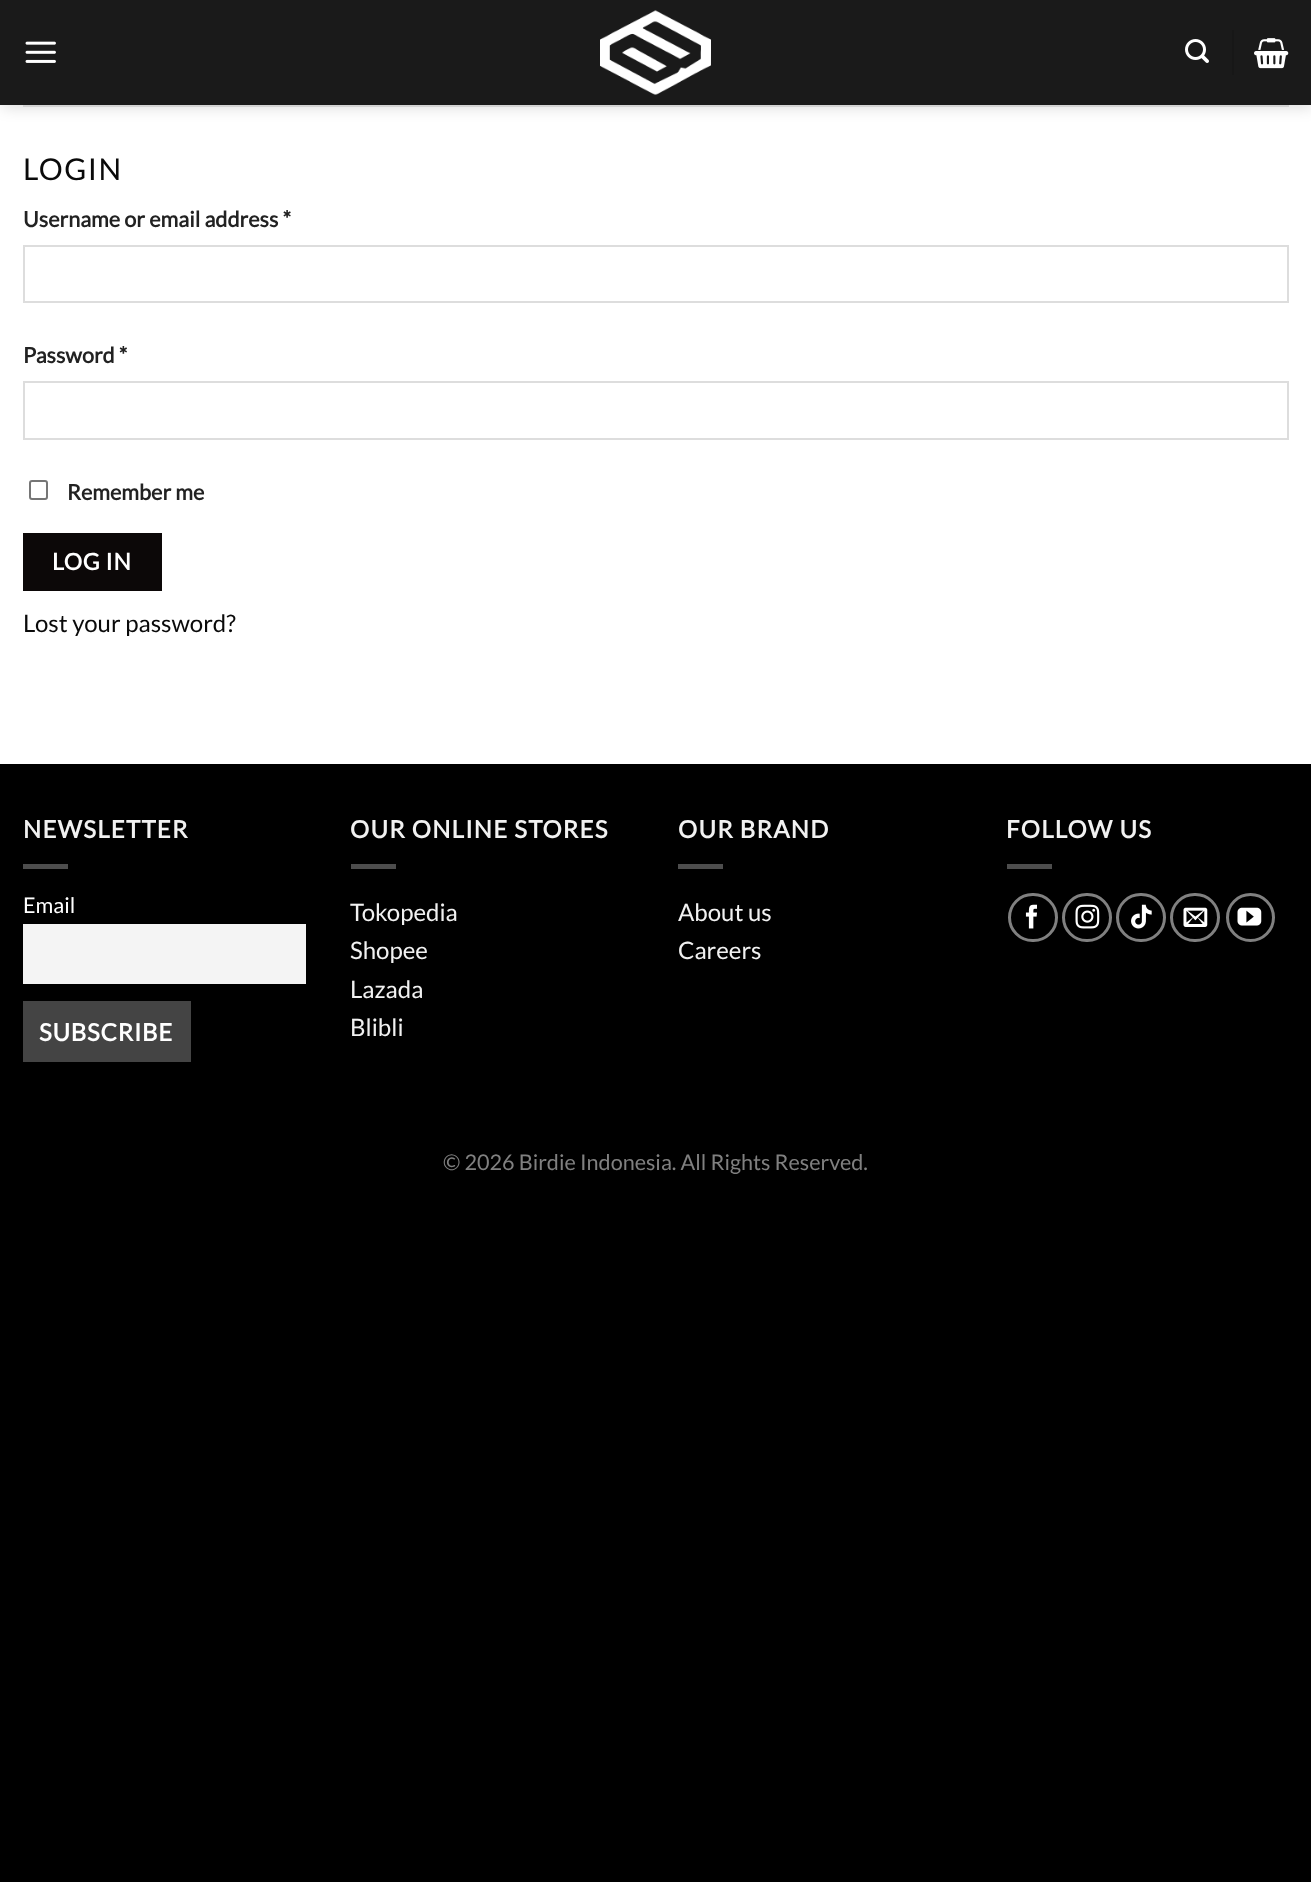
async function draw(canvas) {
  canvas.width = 1311;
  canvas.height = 1882;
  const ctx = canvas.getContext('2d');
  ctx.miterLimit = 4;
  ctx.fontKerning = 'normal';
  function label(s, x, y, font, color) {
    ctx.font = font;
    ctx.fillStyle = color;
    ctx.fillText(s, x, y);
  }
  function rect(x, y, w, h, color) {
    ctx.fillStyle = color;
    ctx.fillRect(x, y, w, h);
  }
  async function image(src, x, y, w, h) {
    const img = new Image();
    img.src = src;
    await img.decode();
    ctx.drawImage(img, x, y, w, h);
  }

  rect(0, 0, 1311, 1882, '#000');
  rect(0, 105, 1311, 659, '#fff');
  ctx.fillStyle = '#00000026';
  ctx.filter = 'blur(7.5px)';
  ctx.beginPath();
  ctx.rect(2, 2, 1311, 105);
  ctx.fill();
  ctx.filter = 'none';
  rect(0, 0, 1311, 105, '#1a1a1a');
  await image('assets/img1.png', 25, 41, 31, 22);
  await image('assets/img2.png', 600, 10, 111, 85);
  await image('assets/img3.png', 1185, 39, 24, 24);
  rect(1232, 30, 2, 45, '#171717');
  await image('assets/img4.png', 1254, 38, 35, 31);
  rect(23, 105, 1266, 2, '#d3d3d3');
  ctx.letterSpacing = '1.5px';
  label('LOGIN', 23, 180, '30px Lato', '#0a0a0a');
  ctx.letterSpacing = '0px';
  label('Username or email address *', 23, 227, 'bold 21.6px Lato', '#222');
  ctx.strokeStyle = '#ddd';
  ctx.lineWidth = 2;
  ctx.strokeRect(24, 246, 1264, 56);
  label('Password *', 23, 363, 'bold 21.6px Lato', '#222');
  ctx.strokeRect(24, 382, 1264, 57);
  ctx.beginPath();
  ctx.roundRect(30, 481, 17, 18, 2);
  ctx.strokeStyle = '#767676';
  ctx.stroke();
  label('Remember me', 67, 500, 'bold 21.6px Lato', '#222');
  rect(23, 533, 139, 58, '#0c0808');
  ctx.letterSpacing = '0.75px';
  label('LOG IN', 52, 570, 'bold 23px Lato', '#fff');
  ctx.letterSpacing = '0px';
  label('Lost your password?', 23, 632, '24px Lato', '#0a0a0a');
  ctx.letterSpacing = '1.25px';
  label('NEWSLETTER', 23, 838, 'bold 24px Lato', '#f1f1f1');
  rect(23, 864, 45, 5, '#4d4d4d');
  ctx.letterSpacing = '0px';
  label('Email', 23, 913, '21.6px Lato', '#fff');
  rect(23, 924, 283, 60, '#f4f4f4');
  rect(23, 1001, 168, 61, '#444');
  ctx.letterSpacing = '0.75px';
  label('SUBSCRIBE', 39, 1041, 'bold 24px Lato', '#fff');
  ctx.letterSpacing = '1.25px';
  label('OUR ONLINE STORES', 350, 838, 'bold 24px Lato', '#f1f1f1');
  rect(351, 864, 45, 5, '#4d4d4d');
  ctx.letterSpacing = '0px';
  label('Tokopedia', 350, 921, '24px Lato', '#f1f1f1');
  label('Shopee', 350, 959, '24px Lato', '#f1f1f1');
  label('Lazada', 350, 998, '24px Lato', '#f1f1f1');
  label('Blibli', 350, 1036, '24px Lato', '#f1f1f1');
  ctx.letterSpacing = '1.25px';
  label('OUR BRAND', 678, 838, 'bold 24px Lato', '#f1f1f1');
  rect(678, 864, 45, 5, '#4d4d4d');
  ctx.letterSpacing = '0px';
  label('About us', 678, 921, '24px Lato', '#f1f1f1');
  label('Careers', 678, 959, '24px Lato', '#f1f1f1');
  ctx.letterSpacing = '1.25px';
  label('FOLLOW US', 1006, 838, 'bold 24px Lato', '#f1f1f1');
  rect(1007, 864, 45, 5, '#4d4d4d');
  ctx.beginPath();
  ctx.roundRect(1009.5, 894.5, 47, 46, 23);
  ctx.strokeStyle = '#808080';
  ctx.lineWidth = 3;
  ctx.stroke();
  await image('assets/img5.png', 1025, 904, 12, 25);
  ctx.beginPath();
  ctx.roundRect(1063.5, 894.5, 47, 46, 23);
  ctx.stroke();
  await image('assets/img6.png', 1075, 904, 25, 25);
  ctx.beginPath();
  ctx.roundRect(1117.5, 894.5, 47, 46, 23);
  ctx.stroke();
  await image('assets/img7.png', 1131, 904, 21, 25);
  ctx.beginPath();
  ctx.roundRect(1171.5, 894.5, 47, 46, 23);
  ctx.stroke();
  await image('assets/img8.png', 1183, 907, 25, 20);
  ctx.beginPath();
  ctx.arc(1250.5, 917.5, 23, 0, 2 * Math.PI);
  ctx.stroke();
  await image('assets/img9.png', 1237, 907, 25, 19);
  ctx.letterSpacing = '0px';
  label('© 2026 Birdie Indonesia. All Rights Reserved.', 443, 1170, '21.6px Lato', '#808080');
}

draw(document.querySelector('canvas'));
